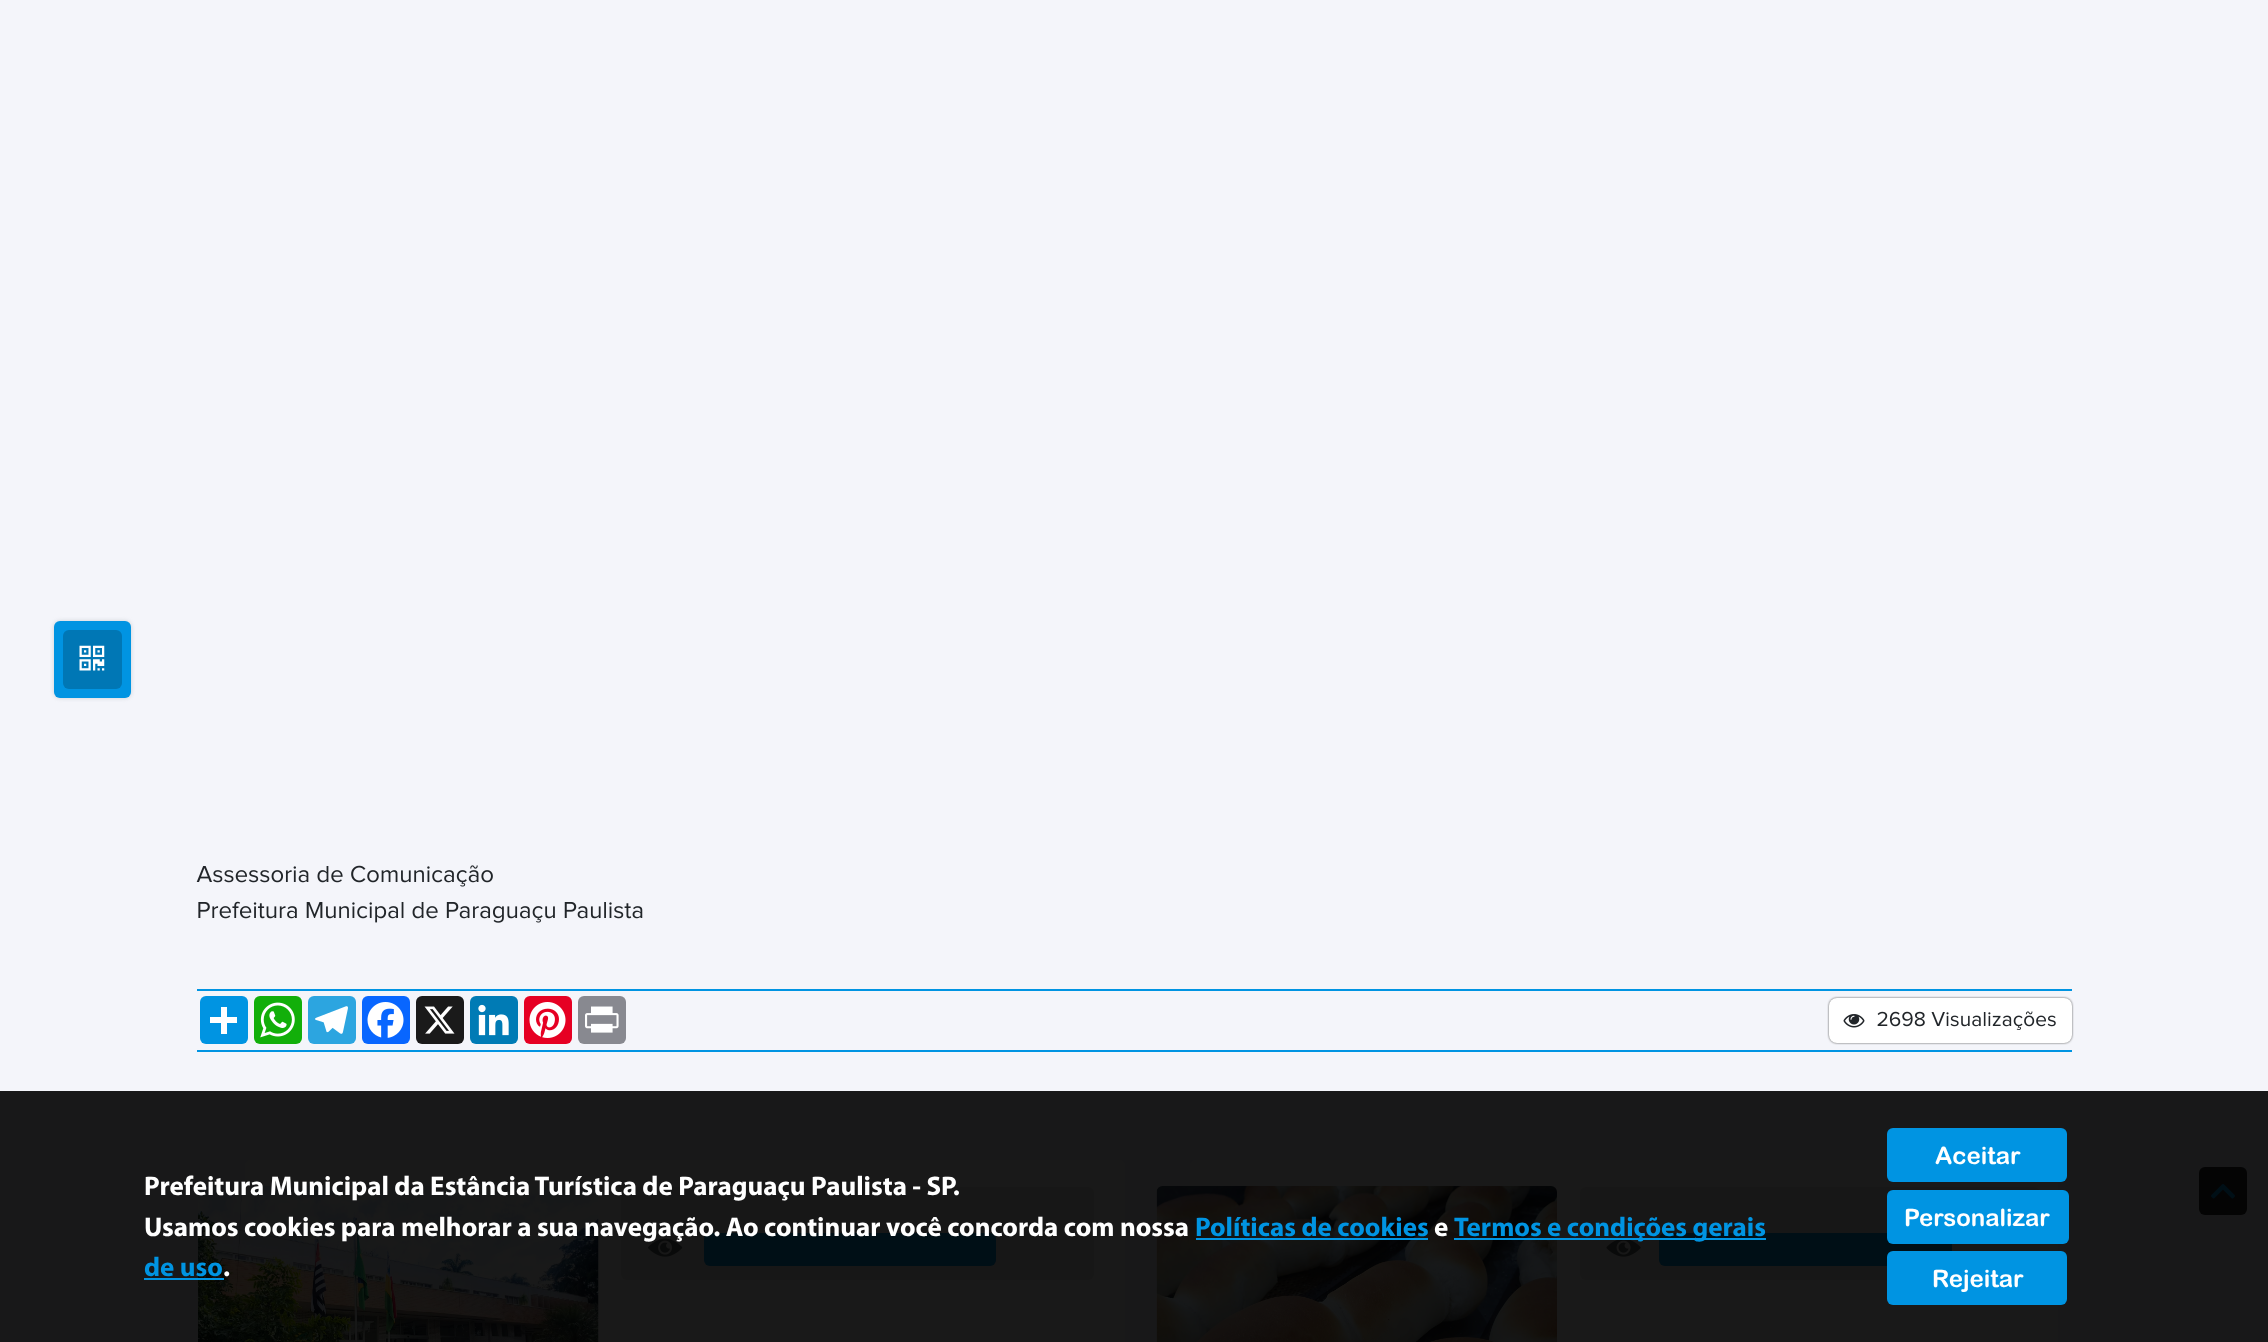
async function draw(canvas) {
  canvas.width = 2268;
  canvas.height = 1342;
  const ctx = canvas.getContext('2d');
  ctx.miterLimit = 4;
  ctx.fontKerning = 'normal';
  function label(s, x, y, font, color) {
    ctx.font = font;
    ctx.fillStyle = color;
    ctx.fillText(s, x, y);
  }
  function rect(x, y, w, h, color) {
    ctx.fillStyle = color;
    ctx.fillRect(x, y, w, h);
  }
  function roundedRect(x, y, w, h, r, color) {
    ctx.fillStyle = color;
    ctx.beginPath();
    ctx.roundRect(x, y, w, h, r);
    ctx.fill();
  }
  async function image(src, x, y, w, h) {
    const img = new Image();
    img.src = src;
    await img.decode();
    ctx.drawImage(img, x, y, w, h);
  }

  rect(0, 0, 2268, 1342, '#f4f5fa');
  ctx.fillStyle = '#cbd0d6';
  ctx.filter = 'blur(2px)';
  ctx.beginPath();
  ctx.roundRect(54, 621, 77, 77, 6);
  ctx.fill();
  ctx.filter = 'none';
  roundedRect(54, 621, 77, 77, 6, '#0094e2');
  roundedRect(63, 630, 59, 59, 6, '#0077b5');
  await image('assets/img1.png', 79, 645, 26, 26);
  await image('assets/img2.png', 196, 865, 297, 22);
  await image('assets/img3.png', 198, 901, 445, 22);
  rect(197, 989, 1875, 2, '#0094e2');
  rect(197, 1050, 1875, 2, '#0094e2');
  roundedRect(200, 996, 48, 48, 6, '#0094e2');
  rect(221, 1007, 6, 27, '#fff');
  rect(210, 1017, 27, 6, '#fff');
  roundedRect(254, 996, 48, 48, 6, '#12af0a');
  await image('assets/img4.png', 260, 1002, 35, 36);
  roundedRect(308, 996, 48, 48, 6, '#2ca5e0');
  await image('assets/img5.png', 315, 1006, 33, 28);
  roundedRect(362, 996, 48, 48, 6, '#0866ff');
  await image('assets/img6.png', 367, 1002, 37, 36);
  roundedRect(416, 996, 48, 48, 6, '#1a1a1a');
  await image('assets/img7.png', 424, 1006, 31, 28);
  roundedRect(470, 996, 48, 48, 6, '#007bb5');
  await image('assets/img8.png', 478, 1004, 31, 32);
  roundedRect(524, 996, 48, 48, 6, '#e60023');
  await image('assets/img9.png', 529, 1002, 37, 36);
  roundedRect(578, 996, 48, 48, 6, '#888990');
  await image('assets/img10.png', 585, 1006, 34, 27);
  ctx.fillStyle = '#585858';
  ctx.filter = 'blur(1px)';
  ctx.beginPath();
  ctx.roundRect(1829, 998, 243, 45, 8);
  ctx.fill();
  ctx.filter = 'none';
  roundedRect(1829, 998, 243, 45, 8, '#fff');
  await image('assets/img11.png', 1843, 1014, 22, 14);
  await image('assets/img12.png', 1877, 1011, 179, 19);
  roundedRect(245, 1160, 880, 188, 6, '#fff');
  await image('assets/img13.png', 198, 1186, 401, 156);
  roundedRect(621, 1187, 473, 93, 6, '#e8e7e3');
  await image('assets/img14.png', 648, 1238, 35, 19);
  roundedRect(704, 1233, 292, 33, 6, '#0094e2');
  roundedRect(1190, 1160, 868, 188, 6, '#fff');
  await image('assets/img15.png', 1156, 1186, 401, 156);
  roundedRect(1580, 1187, 460, 93, 6, '#e8e7e3');
  await image('assets/img16.png', 1606, 1240, 35, 17);
  roundedRect(1659, 1233, 293, 33, 6, '#0094e2');
  roundedRect(2199, 1167, 48, 48, 6, '#2c2c2c');
  await image('assets/img17.png', 2211, 1184, 24, 15);
  rect(0, 1091, 2268, 251, '#000000e6');
  label('Prefeitura Municipal da Estância Turística de Paraguaçu Paulista - SP.', 144, 1195, 'bold 27px Myriad', '#fff');
  label('Usamos cookies para melhorar a sua navegação. Ao continuar você concorda com nossa', 144, 1236, 'bold 27px Myriad', '#fff');
  label('Políticas de cookies', 1195, 1236, 'bold 27px Myriad', '#0094e2');
  rect(1196, 1238, 232, 2, '#0094e2');
  label('e', 1434, 1236, 'bold 27px Myriad', '#fff');
  rect(1454, 1238, 312, 2, '#0094e2');
  label('Termos e condições gerais', 1454, 1236, 'bold 27px Myriad', '#0094e2');
  label('de uso', 144, 1276, 'bold 27px Myriad', '#0094e2');
  rect(144, 1278, 80, 2, '#0094e2');
  label('.', 223, 1276, 'bold 27px Myriad', '#fff');
  roundedRect(1887, 1128, 180, 54, 6, '#0094e2');
  label('Aceitar', 1935, 1164, 'bold 24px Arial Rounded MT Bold', '#fff');
  roundedRect(1887, 1190, 182, 54, 6, '#0094e2');
  label('Personalizar', 1904, 1226, 'bold 24px Arial Rounded MT Bold', '#fff');
  roundedRect(1887, 1251, 180, 54, 6, '#0094e2');
  label('Rejeitar', 1932, 1287, 'bold 24px Arial Rounded MT Bold', '#fff');
}

draw(document.querySelector('canvas'));
